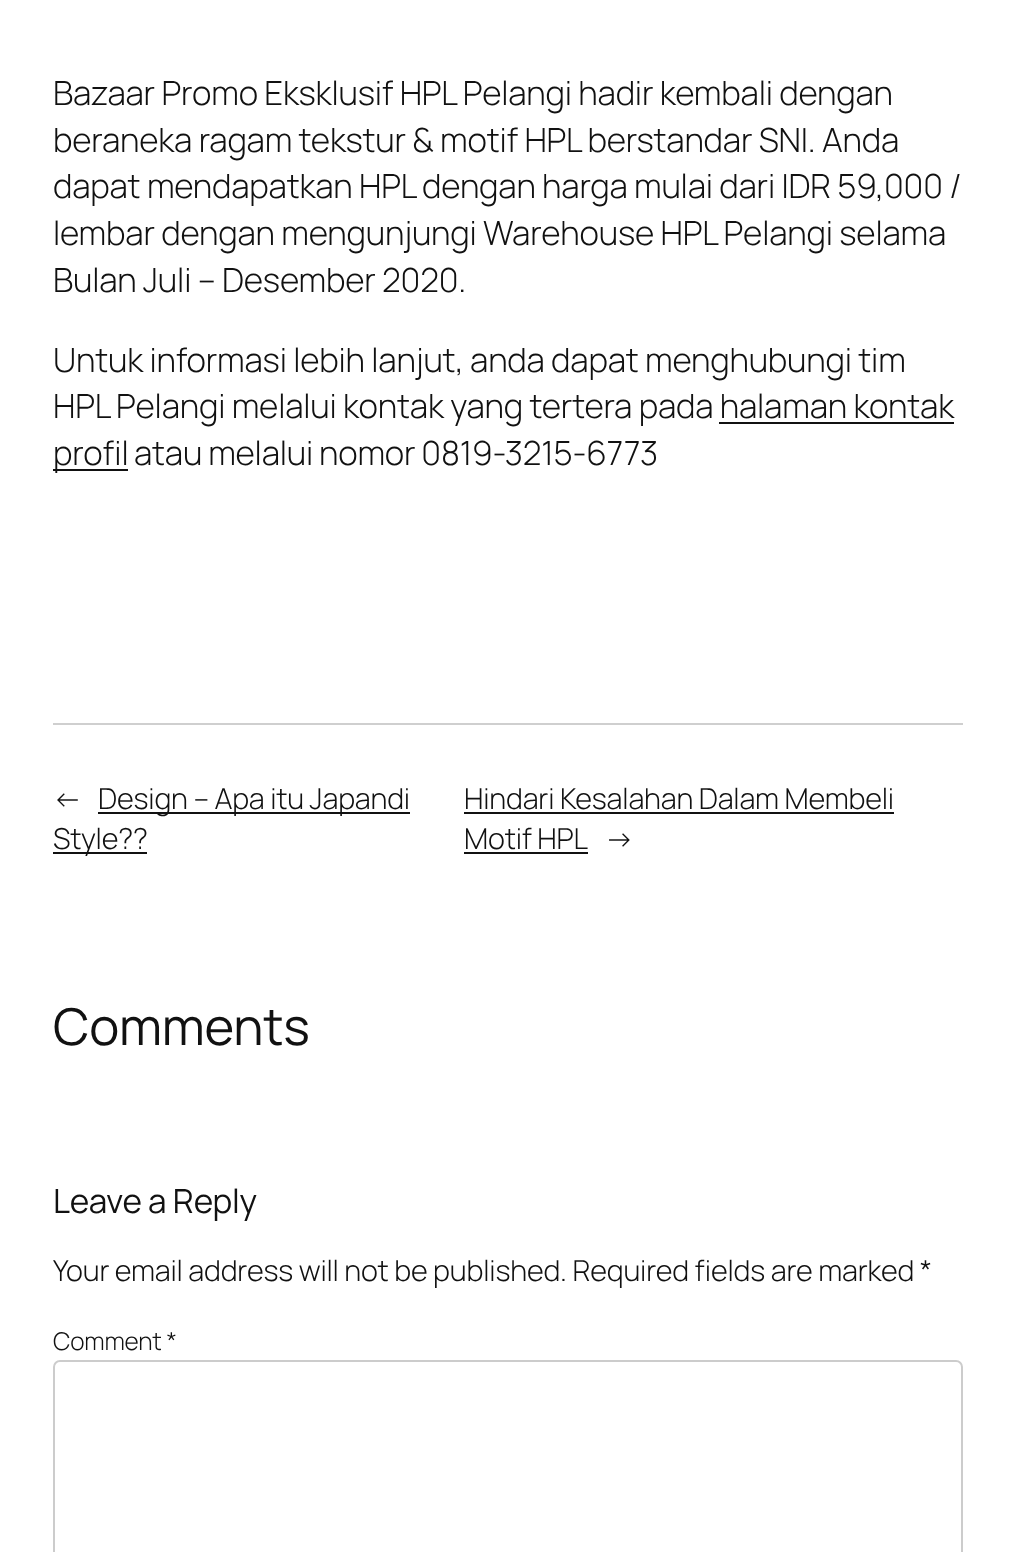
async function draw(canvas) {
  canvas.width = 1015;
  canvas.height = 1552;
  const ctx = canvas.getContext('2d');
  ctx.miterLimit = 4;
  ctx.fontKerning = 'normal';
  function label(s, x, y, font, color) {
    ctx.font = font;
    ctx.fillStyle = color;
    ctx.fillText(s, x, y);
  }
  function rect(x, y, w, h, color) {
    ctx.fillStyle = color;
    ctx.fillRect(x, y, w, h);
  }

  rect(0, 0, 1015, 1552, '#fff');
  ctx.letterSpacing = '-0.18px';
  label('Bazaar Promo Eksklusif HPL Pelangi hadir kembali dengan', 53, 105, '300 33.25px Manrope', '#111');
  label('beraneka ragam tekstur & motif HPL berstandar SNI. Anda', 53, 152, '300 33.25px Manrope', '#111');
  label('dapat mendapatkan HPL dengan harga mulai dari IDR 59,000 /', 53, 198, '300 33.25px Manrope', '#111');
  label('lembar dengan mengunjungi Warehouse HPL Pelangi selama', 53, 245, '300 33.25px Manrope', '#111');
  label('Bulan Juli – Desember 2020.', 53, 292, '300 33.25px Manrope', '#111');
  label('Untuk informasi lebih lanjut, anda dapat menghubungi tim', 53, 372, '300 33.25px Manrope', '#111');
  label('HPL Pelangi melalui kontak yang tertera pada halaman kontak', 53, 418, '300 33.25px Manrope', '#111');
  rect(53, 469, 75, 2, '#111');
  label('profil', 53, 465, '300 33.25px Manrope', '#111');
  rect(719, 422, 235, 2, '#111');
  ctx.wordSpacing = '-0.5px';
  label('atau melalui nomor 0819-3215-6773', 134, 465, '300 33.25px Manrope', '#111');
  rect(53, 723, 910, 2, '#cfcfcf');
  ctx.wordSpacing = '0px';
  label('←', 53, 809, '300 28.9px Manrope', '#111');
  rect(98, 812, 312, 2, '#111');
  label('Design – Apa itu Japandi', 98, 809, '300 28.9px Manrope', '#111');
  rect(53, 852, 94, 2, '#111');
  label('Style??', 53, 849, '300 28.9px Manrope', '#111');
  label('Hindari Kesalahan Dalam Membeli', 464, 809, '300 28.9px Manrope', '#111');
  rect(464, 812, 430, 2, '#111');
  label('Motif HPL', 464, 849, '300 28.9px Manrope', '#111');
  rect(464, 852, 124, 2, '#111');
  label('→', 605, 849, '300 28.9px Manrope', '#111');
  label('Comments', 53, 1045, '50.75px Manrope', '#111');
  label('Leave a Reply', 53, 1213, '33.25px Manrope', '#111');
  label('Your email address will not be published. Required fields are marked *', 53, 1281, '300 28.9px Manrope', '#111');
  label('Comment *', 53, 1350, '300 24.5px Manrope', '#111');
  ctx.beginPath();
  ctx.roundRect(54, 1361, 908, 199, 6);
  ctx.strokeStyle = '#ccc';
  ctx.lineWidth = 2;
  ctx.stroke();
}

draw(document.querySelector('canvas'));
